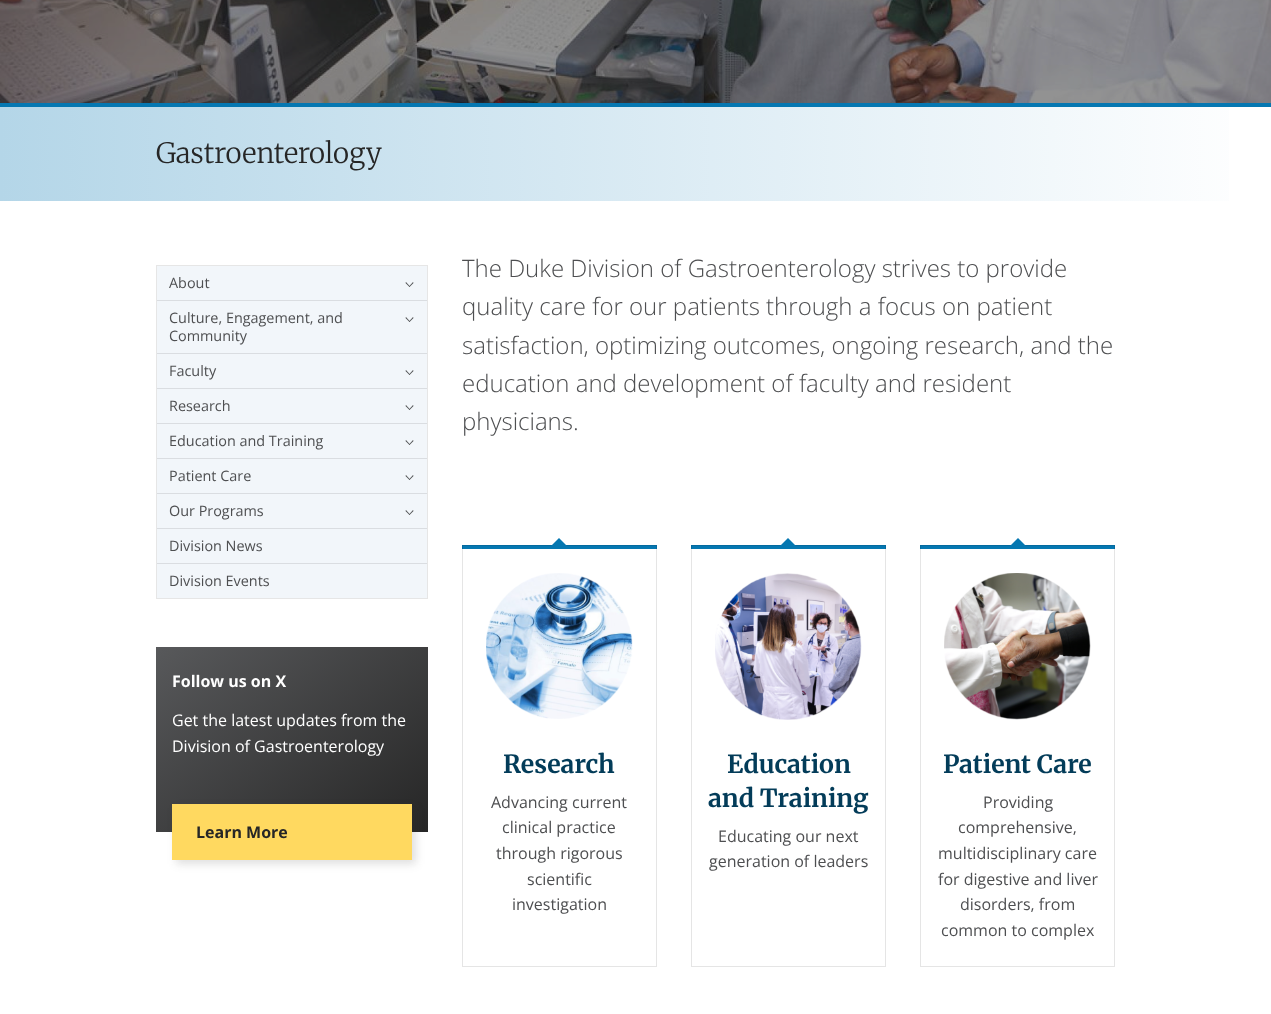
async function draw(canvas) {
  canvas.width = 1271;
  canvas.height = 1014;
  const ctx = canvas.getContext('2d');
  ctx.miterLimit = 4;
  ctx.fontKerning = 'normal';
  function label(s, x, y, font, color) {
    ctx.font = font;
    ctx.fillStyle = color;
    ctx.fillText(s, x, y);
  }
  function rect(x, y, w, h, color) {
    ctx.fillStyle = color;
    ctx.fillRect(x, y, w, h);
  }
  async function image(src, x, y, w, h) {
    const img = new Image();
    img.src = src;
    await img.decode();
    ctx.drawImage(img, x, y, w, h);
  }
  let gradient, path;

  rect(0, 0, 1271, 1014, '#fff');
  await image('assets/img1.png', 0, 0, 1271, 103);
  gradient = ctx.createLinearGradient(0, 154, 1271, 154);
  gradient.addColorStop(0, '#b4d6e8');
  gradient.addColorStop(1, '#fff');
  ctx.fillStyle = gradient;
  ctx.fillRect(0, 107, 1229, 94);
  rect(0, 103, 1271, 4, '#0577b1');
  label('Gastroenterology', 156, 163, '300 28px Merriweather', '#262626');
  ctx.strokeStyle = '#e6e6e6';
  ctx.strokeRect(156.5, 265.5, 271, 333);
  rect(157, 266, 270, 34, '#f2f6fa');
  rect(157, 300, 270, 1, '#dadde1');
  label('About', 169, 288, '14.4px Open Sans', '#4e4f51');
  path = new Path2D('M413 282L413.5 283L409.5 287L409 286.5Z');
  ctx.fill(path);
  path = new Path2D('M406 282L410 286.5L409.5 287L405.5 283Z');
  ctx.fill(path);
  rect(157, 301, 270, 52, '#f2f6fa');
  rect(157, 353, 270, 1, '#dadde1');
  label('Culture, Engagement, and', 169, 323, '14.4px Open Sans', '#4e4f51');
  label('Community', 169, 341, '14.4px Open Sans', '#4e4f51');
  path = new Path2D('M413 317L413.5 318L409.5 322L409 321.5Z');
  ctx.fill(path);
  path = new Path2D('M406 317L410 321.5L409.5 322L405.5 318Z');
  ctx.fill(path);
  rect(157, 354, 270, 34, '#f2f6fa');
  rect(157, 388, 270, 1, '#dadde1');
  label('Faculty', 169, 376, '14.4px Open Sans', '#4e4f51');
  path = new Path2D('M413 370L413.5 371L409.5 375L409 374.5Z');
  ctx.fill(path);
  path = new Path2D('M406 370L410 374.5L409.5 375L405.5 371Z');
  ctx.fill(path);
  rect(157, 389, 270, 34, '#f2f6fa');
  rect(157, 423, 270, 1, '#dadde1');
  label('Research', 169, 411, '14.4px Open Sans', '#4e4f51');
  path = new Path2D('M413 405L413.5 406L409.5 410L409 409.5Z');
  ctx.fill(path);
  path = new Path2D('M406 405L410 409.5L409.5 410L405.5 406Z');
  ctx.fill(path);
  rect(157, 424, 270, 34, '#f2f6fa');
  rect(157, 458, 270, 1, '#dadde1');
  label('Education and Training', 169, 446, '14.4px Open Sans', '#4e4f51');
  path = new Path2D('M413 440L413.5 441L409.5 445L409 444.5Z');
  ctx.fill(path);
  path = new Path2D('M406 440L410 444.5L409.5 445L405.5 441Z');
  ctx.fill(path);
  rect(157, 459, 270, 34, '#f2f6fa');
  rect(157, 493, 270, 1, '#dadde1');
  label('Patient Care', 169, 481, '14.4px Open Sans', '#4e4f51');
  path = new Path2D('M413 475L413.5 476L409.5 480L409 479.5Z');
  ctx.fill(path);
  path = new Path2D('M406 475L410 479.5L409.5 480L405.5 476Z');
  ctx.fill(path);
  rect(157, 494, 270, 34, '#f2f6fa');
  rect(157, 528, 270, 1, '#dadde1');
  label('Our Programs', 169, 516, '14.4px Open Sans', '#4e4f51');
  path = new Path2D('M413 510L413.5 511L409.5 515L409 514.5Z');
  ctx.fill(path);
  path = new Path2D('M406 510L410 514.5L409.5 515L405.5 511Z');
  ctx.fill(path);
  rect(157, 529, 270, 34, '#f2f6fa');
  rect(157, 563, 270, 1, '#dadde1');
  label('Division News', 169, 551, '14.4px Open Sans', '#4e4f51');
  rect(157, 564, 270, 34, '#f2f6fa');
  label('Division Events', 169, 586, '14.4px Open Sans', '#4e4f51');
  label('The Duke Division of Gastroenterology strives to provide', 462, 277, '300 24px Open Sans', '#4e4f51');
  label('quality care for our patients through a focus on patient', 462, 315, '300 24px Open Sans', '#4e4f51');
  label('satisfaction, optimizing outcomes, ongoing research, and the', 462, 354, '300 24px Open Sans', '#4e4f51');
  label('education and development of faculty and resident', 462, 392, '300 24px Open Sans', '#4e4f51');
  label('physicians.', 462, 430, '300 24px Open Sans', '#4e4f51');
  rect(462, 545, 195, 4, '#0577b1');
  await image('assets/img2.png', 486, 573, 147, 146);
  ctx.strokeStyle = '#0000001a';
  ctx.strokeRect(462.5, 545.5, 194, 421);
  path = new Path2D('M567 546H551L559 538Z');
  ctx.fill(path);
  label('Research', 503, 773, 'bold 25px Merriweather', '#033c59');
  label('Advancing current', 491, 808, '16px Open Sans', '#4e4f51');
  label('clinical practice', 502, 833, '16px Open Sans', '#4e4f51');
  label('through rigorous', 496, 859, '16px Open Sans', '#4e4f51');
  label('scientific', 527, 885, '16px Open Sans', '#4e4f51');
  label('investigation', 512, 910, '16px Open Sans', '#4e4f51');
  rect(691, 545, 195, 4, '#0577b1');
  await image('assets/img3.png', 715, 573, 147, 147);
  ctx.strokeRect(691.5, 545.5, 194, 421);
  path = new Path2D('M796 546H780L788 538Z');
  ctx.fill(path);
  label('Education', 727, 773, 'bold 25px Merriweather', '#033c59');
  label('and Training', 708, 807, 'bold 25px Merriweather', '#033c59');
  label('Educating our next', 718, 842, '16px Open Sans', '#4e4f51');
  label('generation of leaders', 709, 867, '16px Open Sans', '#4e4f51');
  rect(920, 545, 195, 4, '#0577b1');
  await image('assets/img4.png', 944, 573, 147, 147);
  ctx.strokeRect(920.5, 545.5, 194, 421);
  path = new Path2D('M1026 546H1010L1018 538Z');
  ctx.fill(path);
  label('Patient Care', 943, 773, 'bold 25px Merriweather', '#033c59');
  label('Providing', 983, 808, '16px Open Sans', '#4e4f51');
  label('comprehensive,', 958, 833, '16px Open Sans', '#4e4f51');
  label('multidisciplinary care', 938, 859, '16px Open Sans', '#4e4f51');
  label('for digestive and liver', 938, 885, '16px Open Sans', '#4e4f51');
  label('disorders, from', 960, 910, '16px Open Sans', '#4e4f51');
  label('common to complex', 941, 936, '16px Open Sans', '#4e4f51');
  gradient = ctx.createLinearGradient(198, 615, 386, 864);
  gradient.addColorStop(0, '#58595b');
  gradient.addColorStop(1, '#262626');
  ctx.fillStyle = gradient;
  ctx.fillRect(156, 647, 272, 185);
  label('Follow us on X', 172, 687, 'bold 16px Open Sans', '#fff');
  label('Get the latest updates from the', 172, 726, '16px Open Sans', '#fff');
  label('Division of Gastroenterology', 172, 752, '16px Open Sans', '#fff');
  ctx.fillStyle = '#26262626';
  ctx.filter = 'blur(4px)';
  ctx.beginPath();
  ctx.rect(176, 808, 240, 56);
  ctx.fill();
  ctx.filter = 'none';
  rect(172, 804, 240, 56, '#ffd960');
  label('Learn More', 196, 838, 'bold 16px Open Sans', '#262626');
}

draw(document.querySelector('canvas'));
